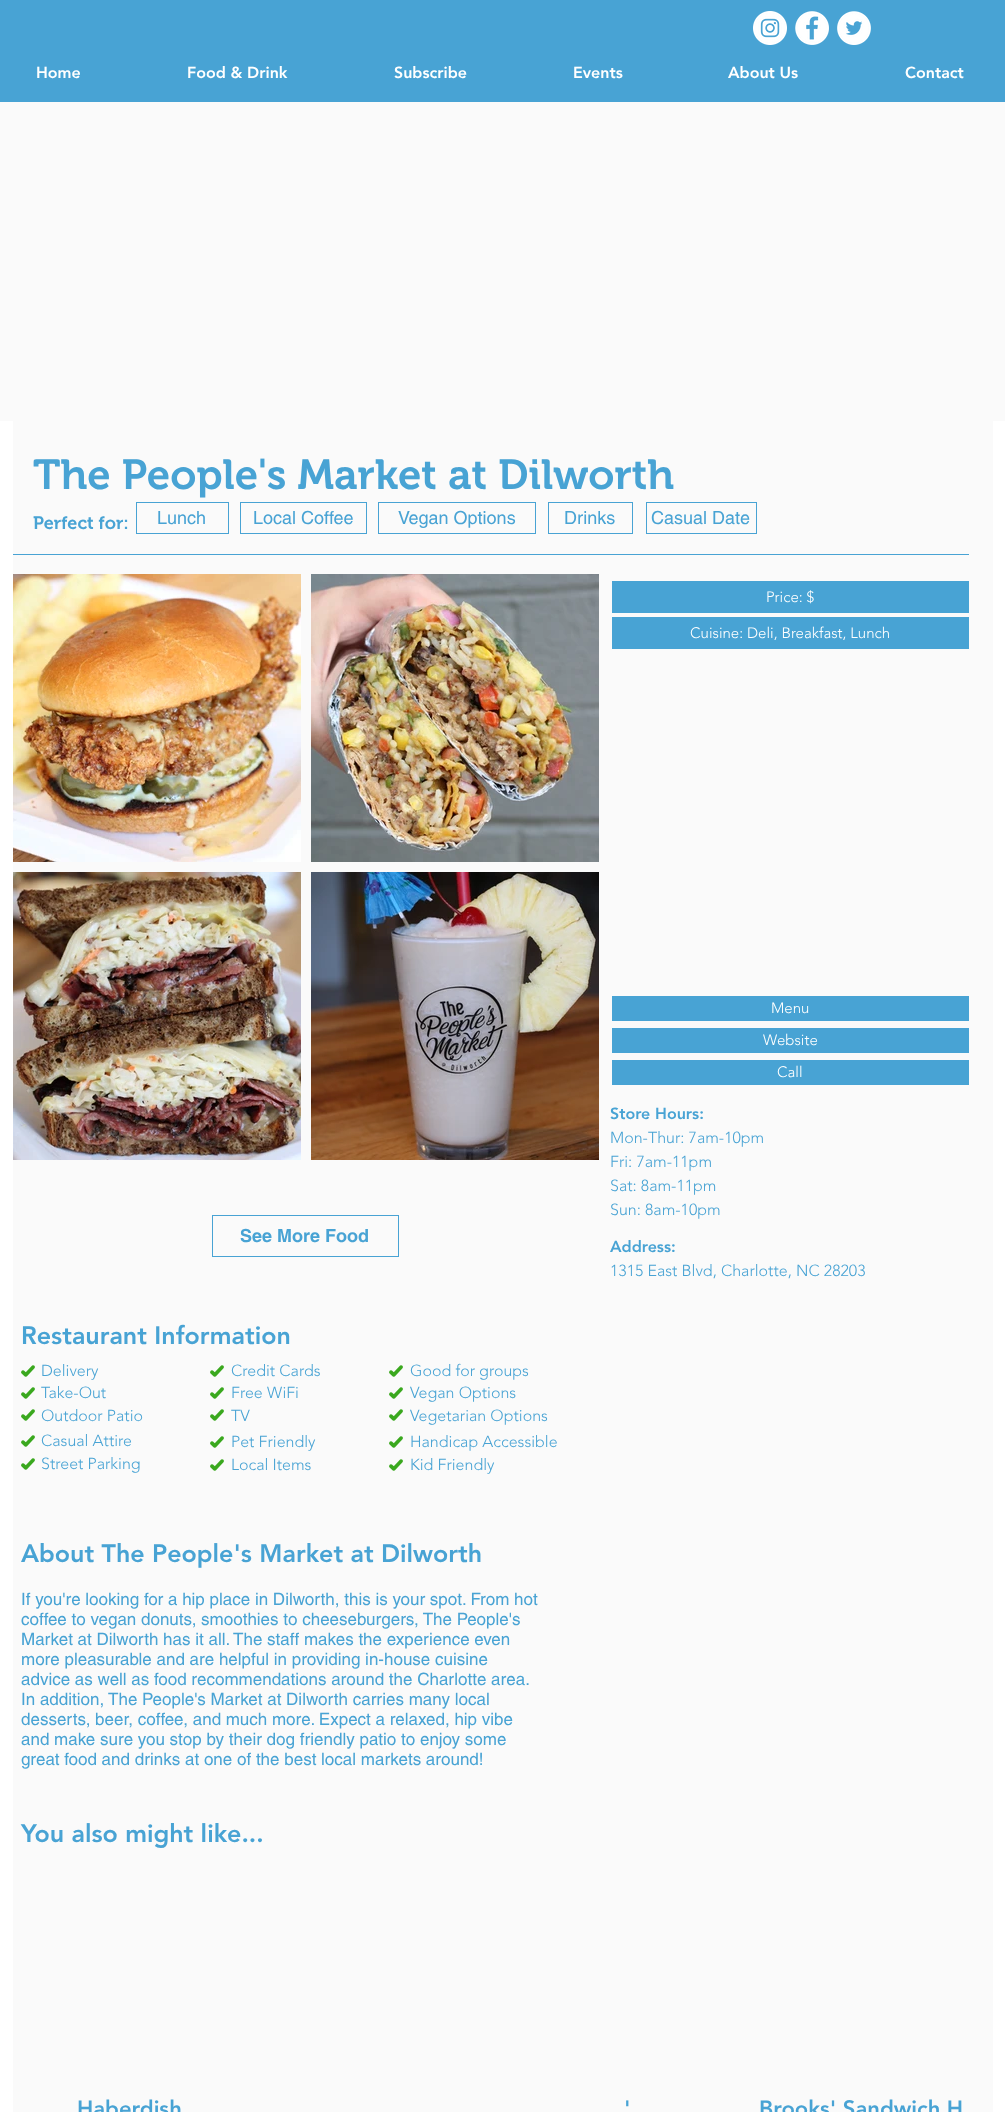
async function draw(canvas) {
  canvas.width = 1005;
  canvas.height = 2112;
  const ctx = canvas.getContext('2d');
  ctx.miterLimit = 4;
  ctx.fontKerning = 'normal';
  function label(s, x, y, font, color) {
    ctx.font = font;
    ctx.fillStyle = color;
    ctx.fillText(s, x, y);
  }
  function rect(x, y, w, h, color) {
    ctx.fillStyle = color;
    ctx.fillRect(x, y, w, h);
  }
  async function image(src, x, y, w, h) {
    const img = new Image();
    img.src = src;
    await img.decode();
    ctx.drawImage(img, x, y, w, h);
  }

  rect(0, 0, 1005, 2112, '#fff');
  rect(0, 0, 1005, 102, '#48a3d4');
  await image('assets/img1.png', 753, 11, 34, 34);
  await image('assets/img2.png', 795, 11, 34, 34);
  await image('assets/img3.png', 837, 11, 34, 34);
  label('Home', 36, 78, '900 16px "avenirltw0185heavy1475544"', '#fff');
  label('Food & Drink', 187, 78, '900 16px "avenirltw0185heavy1475544"', '#fff');
  label('Subscribe', 394, 78, '900 16px "avenirltw0185heavy1475544"', '#fff');
  label('Events', 573, 78, '900 16px "avenirltw0185heavy1475544"', '#fff');
  label('About Us', 728, 78, '900 16px "avenirltw0185heavy1475544"', '#fff');
  label('Contact', 905, 78, '900 16px "avenirltw0185heavy1475544"', '#fff');
  rect(0, 102, 1005, 319, '#fafafa');
  rect(13, 421, 980, 1691, '#fafafa');
  label('The People\'s Market at Dilworth', 33, 489, '600 42px "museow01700"', '#48a3d4');
  label('Perfect for:', 33, 529, '600 18px "museow01700"', '#48a3d4');
  ctx.strokeStyle = '#48a3d4';
  ctx.strokeRect(136.5, 502.5, 92, 31);
  label('Lunch', 157, 524, '18px helvetica', '#48a3d4');
  ctx.strokeRect(240.5, 502.5, 126, 31);
  label('Local Coffee', 253, 524, '18px helvetica', '#48a3d4');
  ctx.strokeRect(378.5, 502.5, 157, 31);
  label('Vegan Options', 398, 524, '18px helvetica', '#48a3d4');
  ctx.strokeRect(548.5, 502.5, 84, 31);
  label('Drinks', 564, 524, '18px helvetica', '#48a3d4');
  ctx.strokeRect(646.5, 502.5, 110, 31);
  label('Casual Date', 651, 524, '18px helvetica', '#48a3d4');
  rect(13, 554, 956, 1, '#48a3d4');
  await image('assets/img4.png', 13, 574, 288, 288);
  await image('assets/img5.png', 311, 574, 288, 288);
  await image('assets/img6.png', 13, 872, 288, 288);
  await image('assets/img7.png', 311, 872, 288, 288);
  rect(612, 581, 357, 32, '#48a3d4');
  label('Price: $', 766, 602, '300 15px "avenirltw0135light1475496"', '#fff');
  rect(612, 617, 357, 32, '#48a3d4');
  label('Cuisine: Deli, Breakfast, Lunch', 690, 638, '300 15px "avenirltw0135light1475496"', '#fff');
  rect(612, 996, 357, 25, '#48a3d4');
  label('Menu', 771, 1013, '300 15px "avenirltw0135light1475496"', '#fff');
  rect(612, 1028, 357, 25, '#48a3d4');
  label('Website', 763, 1045, '300 15px "avenirltw0135light1475496"', '#fff');
  rect(612, 1060, 357, 25, '#48a3d4');
  label('Call', 777, 1077, '300 15px "avenirltw0135light1475496"', '#fff');
  label('Store Hours:', 610, 1119, '900 16px "avenirltw0185heavy1475544"', '#48a3d4');
  label('Mon-Thur: 7am-10pm', 610, 1143, '300 16px "avenirltw0135light1475496"', '#48a3d4');
  label('Fri: 7am-11pm', 610, 1167, '300 16px "avenirltw0135light1475496"', '#48a3d4');
  label('Sat: 8am-11pm', 610, 1191, '300 16px "avenirltw0135light1475496"', '#48a3d4');
  label('Sun: 8am-10pm', 610, 1215, '300 16px "avenirltw0135light1475496"', '#48a3d4');
  ctx.strokeRect(212.5, 1215.5, 186, 41);
  label('See More Food', 240, 1242, 'bold 18px helvetica', '#48a3d4');
  label('Address:', 610, 1252, '900 16px "avenirltw0185heavy1475544"', '#48a3d4');
  label('1315 East Blvd, Charlotte, NC 28203', 610, 1276, '300 16px "avenirltw0135light1475496"', '#48a3d4');
  label('Restaurant Information', 21, 1344, '900 25px "avenirltw0185heavy1475544"', '#48a3d4');
  await image('assets/img8.png', 21, 1365, 14, 12);
  label('Delivery', 41, 1376, '300 16px "avenirltw0135light1475496"', '#48a3d4');
  await image('assets/img8.png', 210, 1365, 14, 12);
  label('Credit Cards', 231, 1376, '300 16px "avenirltw0135light1475496"', '#48a3d4');
  await image('assets/img8.png', 210, 1387, 14, 12);
  label('Free WiFi', 231, 1398, '300 16px "avenirltw0135light1475496"', '#48a3d4');
  await image('assets/img8.png', 210, 1409, 14, 12);
  label('TV', 231, 1421, '300 16px "avenirltw0135light1475496"', '#48a3d4');
  await image('assets/img8.png', 210, 1436, 14, 12);
  label('Pet Friendly', 231, 1447, '300 16px "avenirltw0135light1475496"', '#48a3d4');
  await image('assets/img8.png', 210, 1459, 14, 12);
  label('Local Items', 231, 1470, '300 16px "avenirltw0135light1475496"', '#48a3d4');
  await image('assets/img8.png', 389, 1365, 14, 12);
  label('Good for groups', 410, 1376, '300 16px "avenirltw0135light1475496"', '#48a3d4');
  await image('assets/img8.png', 389, 1387, 14, 12);
  label('Vegan Options', 410, 1398, '300 16px "avenirltw0135light1475496"', '#48a3d4');
  await image('assets/img8.png', 389, 1409, 14, 12);
  label('Vegetarian Options', 410, 1421, '300 16px "avenirltw0135light1475496"', '#48a3d4');
  await image('assets/img8.png', 389, 1436, 14, 12);
  label('Handicap Accessible', 410, 1447, '300 16px "avenirltw0135light1475496"', '#48a3d4');
  await image('assets/img8.png', 389, 1459, 14, 12);
  label('Kid Friendly', 410, 1470, '300 16px "avenirltw0135light1475496"', '#48a3d4');
  await image('assets/img8.png', 21, 1387, 14, 12);
  label('Take-Out', 41, 1398, '300 16px "avenirltw0135light1475496"', '#48a3d4');
  await image('assets/img8.png', 21, 1409, 14, 12);
  label('Outdoor Patio', 41, 1421, '300 16px "avenirltw0135light1475496"', '#48a3d4');
  await image('assets/img8.png', 21, 1435, 14, 12);
  label('Casual Attire', 41, 1446, '300 16px "avenirltw0135light1475496"', '#48a3d4');
  await image('assets/img8.png', 21, 1458, 14, 12);
  label('Street Parking', 41, 1469, '300 16px "avenirltw0135light1475496"', '#48a3d4');
  label('About The People\'s Market at Dilworth', 21, 1562, '900 25px "avenirltw0185heavy1475544"', '#48a3d4');
  label('If you\'re looking for a hip place in Dilworth, this is your spot. From hot', 21, 1605, '17px helvetica', '#48a3d4');
  label('coffee to vegan donuts, smoothies to cheeseburgers, The People\'s', 21, 1625, '17px helvetica', '#48a3d4');
  label('Market at Dilworth has it all. The staff makes the experience even', 21, 1645, '17px helvetica', '#48a3d4');
  label('more pleasurable and are helpful in providing in-house cuisine', 21, 1665, '17px helvetica', '#48a3d4');
  label('advice as well as food recommendations around the Charlotte area.', 21, 1685, '17px helvetica', '#48a3d4');
  label('In addition, The People\'s Market at Dilworth carries many local', 21, 1705, '17px helvetica', '#48a3d4');
  label('desserts, beer, coffee, and much more. Expect a relaxed, hip vibe', 21, 1725, '17px helvetica', '#48a3d4');
  label('and make sure you stop by their dog friendly patio to enjoy some', 21, 1745, '17px helvetica', '#48a3d4');
  label('great food and drinks at one of the best local markets around!', 21, 1765, '17px helvetica', '#48a3d4');
  label('You also might like...', 21, 1842, '900 25px "avenirltw0185heavy1475544"', '#48a3d4');
  label('Haberdish', 77, 2116, '900 22px "avenirltw0185heavy1475544"', '#48a3d4');
  label('\'', 624, 2116, '900 22px "avenirltw0185heavy1475544"', '#48a3d4');
  label('Brooks\' Sandwich H', 759, 2116, '900 22px "avenirltw0185heavy1475544"', '#48a3d4');
}

draw(document.querySelector('canvas'));
